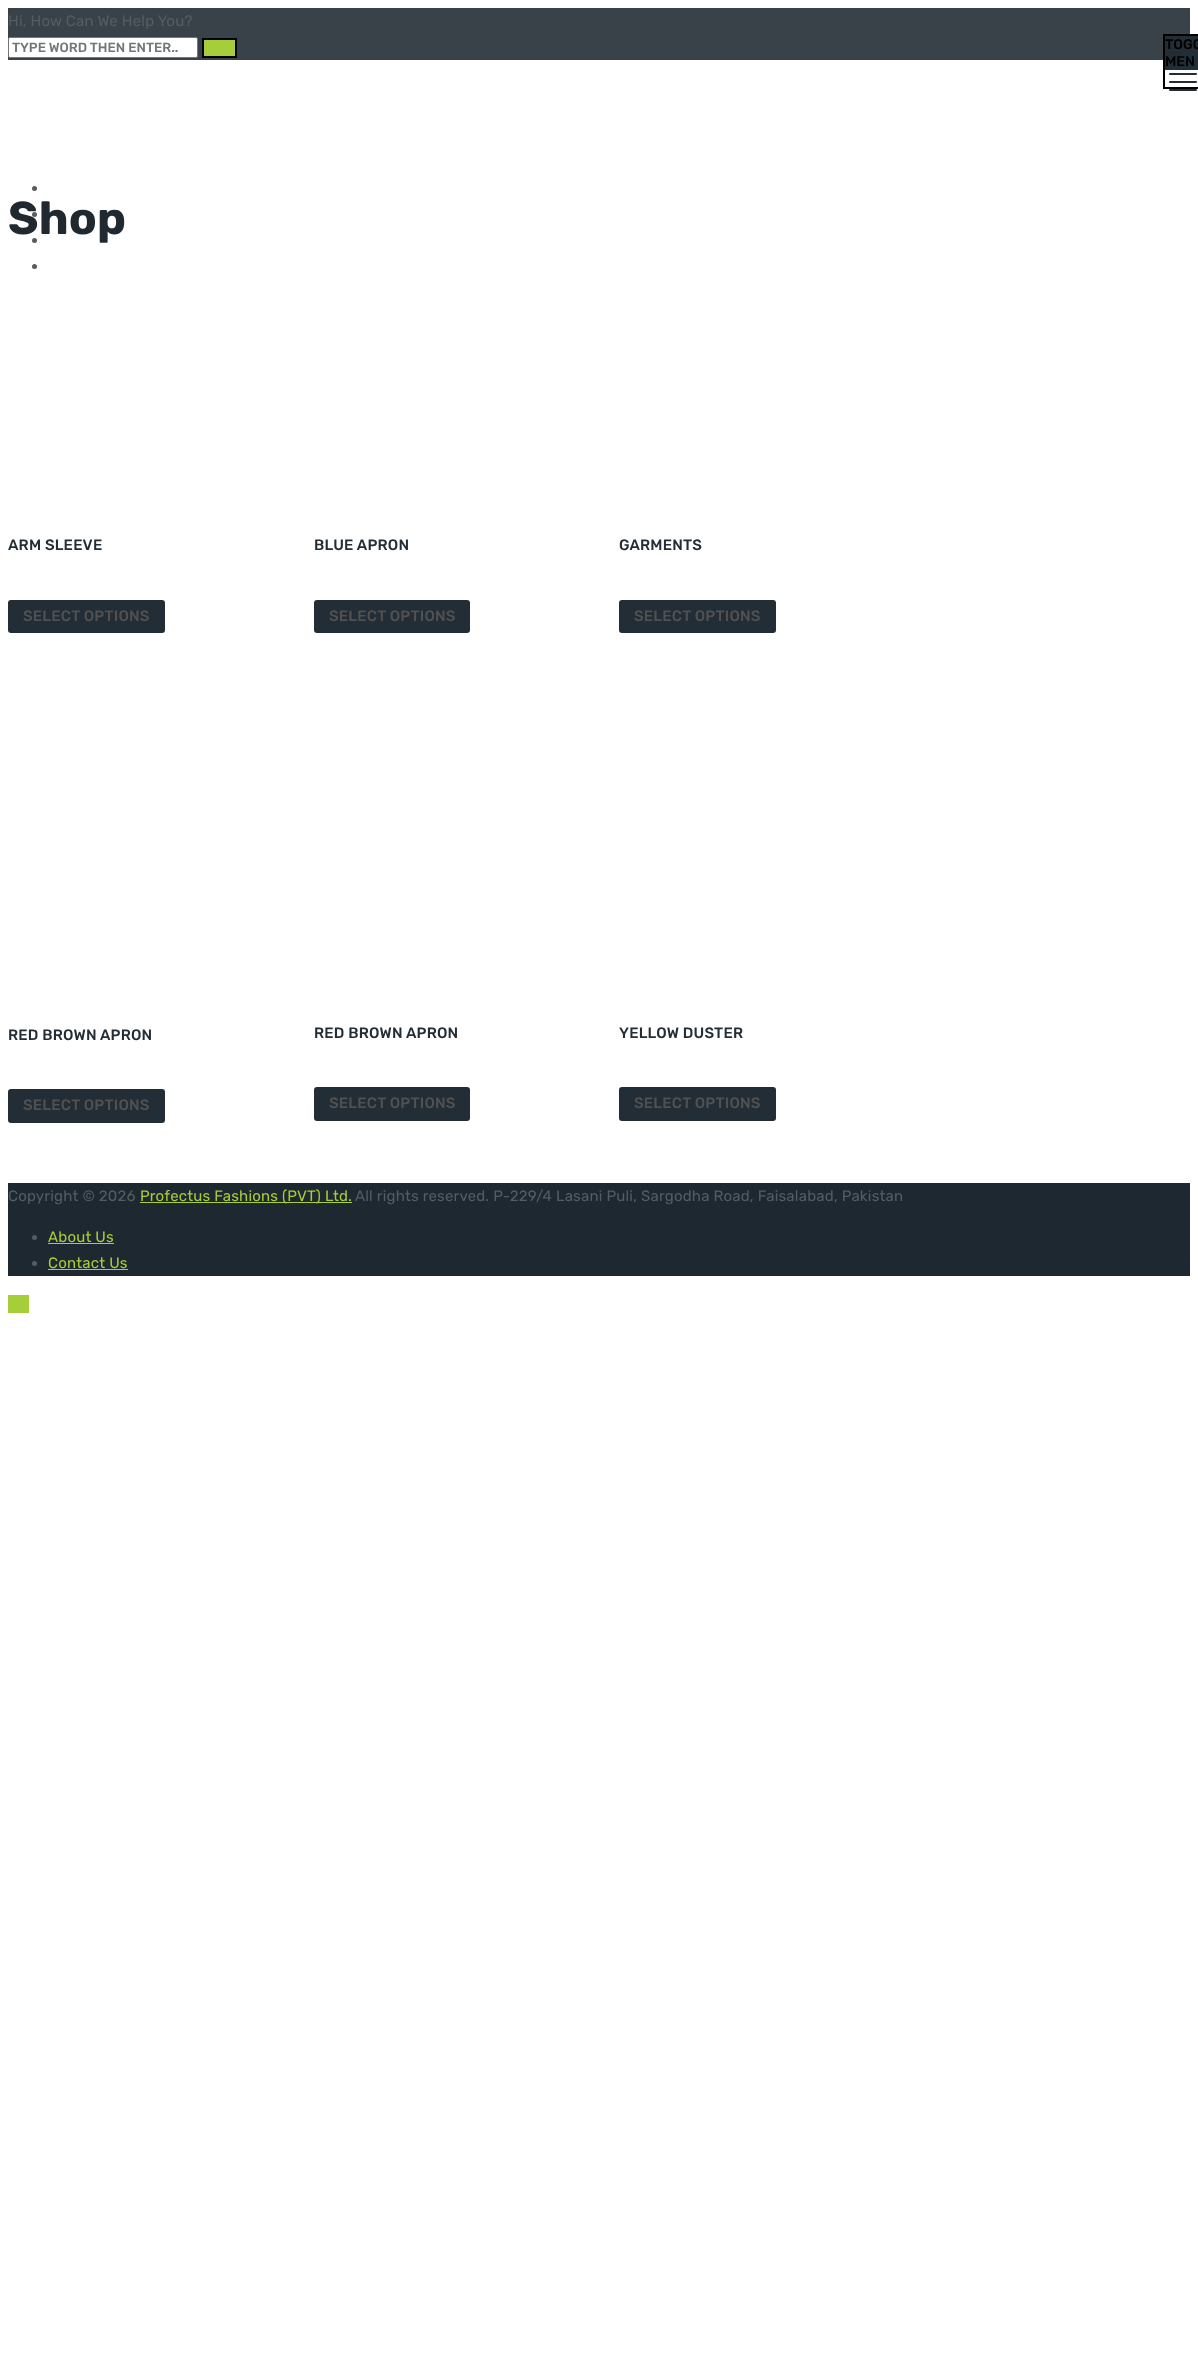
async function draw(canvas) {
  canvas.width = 1198;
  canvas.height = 2354;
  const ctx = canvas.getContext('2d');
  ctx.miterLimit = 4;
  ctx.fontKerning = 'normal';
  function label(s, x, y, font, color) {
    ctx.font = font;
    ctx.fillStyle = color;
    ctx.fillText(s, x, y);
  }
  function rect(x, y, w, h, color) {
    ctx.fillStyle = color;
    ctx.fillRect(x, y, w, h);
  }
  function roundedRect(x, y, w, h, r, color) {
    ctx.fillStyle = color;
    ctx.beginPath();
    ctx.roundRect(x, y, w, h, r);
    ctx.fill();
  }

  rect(0, 0, 1198, 2354, '#fff');
  rect(8, 8, 1182, 52, '#3a4249');
  ctx.letterSpacing = '0.2px';
  label('Hi, How Can We Help You?', 8, 26, '15px Rubik', '#555c63');
  ctx.fillStyle = '#fff';
  ctx.beginPath();
  ctx.roundRect(8.5, 37.5, 189, 20, 1.5);
  ctx.fill();
  ctx.strokeStyle = '#767676';
  ctx.stroke();
  ctx.letterSpacing = '0px';
  label('TYPE WORD THEN ENTER..', 12, 52, '500 13.3px Rubik', '#757575');
  ctx.fillStyle = '#a6ce39';
  ctx.beginPath();
  ctx.rect(203, 39, 33, 18);
  ctx.fill();
  ctx.strokeStyle = '#000';
  ctx.lineWidth = 2;
  ctx.stroke();
  ctx.strokeRect(1164, 35, 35, 53);
  rect(1165, 36, 33, 34, '#222d35');
  label('TOGG', 1165, 49, '500 14px Rubik', '#000');
  label('MEN', 1165, 66, '500 14px Rubik', '#000');
  roundedRect(1169, 81, 28, 2, 1, '#222d35');
  roundedRect(1169, 73, 28, 2, 1, '#222d35');
  roundedRect(1169, 89, 28, 2, 1, '#222d35');
  ctx.fillStyle = '#555c63';
  ctx.beginPath();
  ctx.arc(34.5, 188.5, 2.5, 0, 2 * Math.PI);
  ctx.fill();
  ctx.beginPath();
  ctx.arc(34.5, 214.5, 2.5, 0, 2 * Math.PI);
  ctx.fill();
  ctx.beginPath();
  ctx.arc(34.5, 240.5, 2.5, 0, 2 * Math.PI);
  ctx.fill();
  ctx.beginPath();
  ctx.arc(34.5, 266.5, 2.5, 0, 2 * Math.PI);
  ctx.fill();
  ctx.letterSpacing = '0.2px';
  label('Shop', 8, 234, 'bold 46px Rubik', '#20292f');
  label('ARM SLEEVE', 8, 550, '500 15px Rubik', '#222d35');
  roundedRect(8, 600, 157, 33, 3, '#222d35');
  label('SELECT OPTIONS', 23, 621, '500 15px Rubik', '#515151');
  label('BLUE APRON', 314, 550, '500 15px Rubik', '#222d35');
  roundedRect(314, 600, 156, 33, 3, '#222d35');
  label('SELECT OPTIONS', 329, 621, '500 15px Rubik', '#515151');
  label('GARMENTS', 619, 550, '500 15px Rubik', '#222d35');
  roundedRect(619, 600, 157, 33, 3, '#222d35');
  label('SELECT OPTIONS', 634, 621, '500 15px Rubik', '#515151');
  label('RED BROWN APRON', 8, 1040, '500 15px Rubik', '#222d35');
  roundedRect(8, 1089, 157, 34, 3, '#222d35');
  label('SELECT OPTIONS', 23, 1110, '500 15px Rubik', '#515151');
  label('RED BROWN APRON', 314, 1038, '500 15px Rubik', '#222d35');
  roundedRect(314, 1087, 156, 34, 3, '#222d35');
  label('SELECT OPTIONS', 329, 1108, '500 15px Rubik', '#515151');
  label('YELLOW DUSTER', 619, 1038, '500 15px Rubik', '#222d35');
  roundedRect(619, 1087, 157, 34, 3, '#222d35');
  label('SELECT OPTIONS', 634, 1108, '500 15px Rubik', '#515151');
  rect(8, 1183, 1182, 93, '#1e2830');
  label('Copyright © 2026', 8, 1201, '15px Rubik', '#555c63');
  rect(140, 1202, 212, 1, '#a6ce39');
  label('Profectus Fashions (PVT) Ltd.', 140, 1201, '15px Rubik', '#a6ce39');
  label('All rights reserved. P-229/4 Lasani Puli, Sargodha Road, Faisalabad, Pakistan', 355, 1201, '15px Rubik', '#555c63');
  ctx.beginPath();
  ctx.arc(34.5, 1237.5, 2.5, 0, 2 * Math.PI);
  ctx.fill();
  label('About Us', 48, 1242, '15px Rubik', '#a6ce39');
  rect(48, 1243, 66, 1, '#a6ce39');
  ctx.fillStyle = '#555c63';
  ctx.beginPath();
  ctx.arc(34.5, 1263.5, 2.5, 0, 2 * Math.PI);
  ctx.fill();
  label('Contact Us', 48, 1268, '15px Rubik', '#a6ce39');
  rect(48, 1269, 80, 1, '#a6ce39');
  rect(8, 1295, 21, 18, '#a6ce39');
}

draw(document.querySelector('canvas'));
